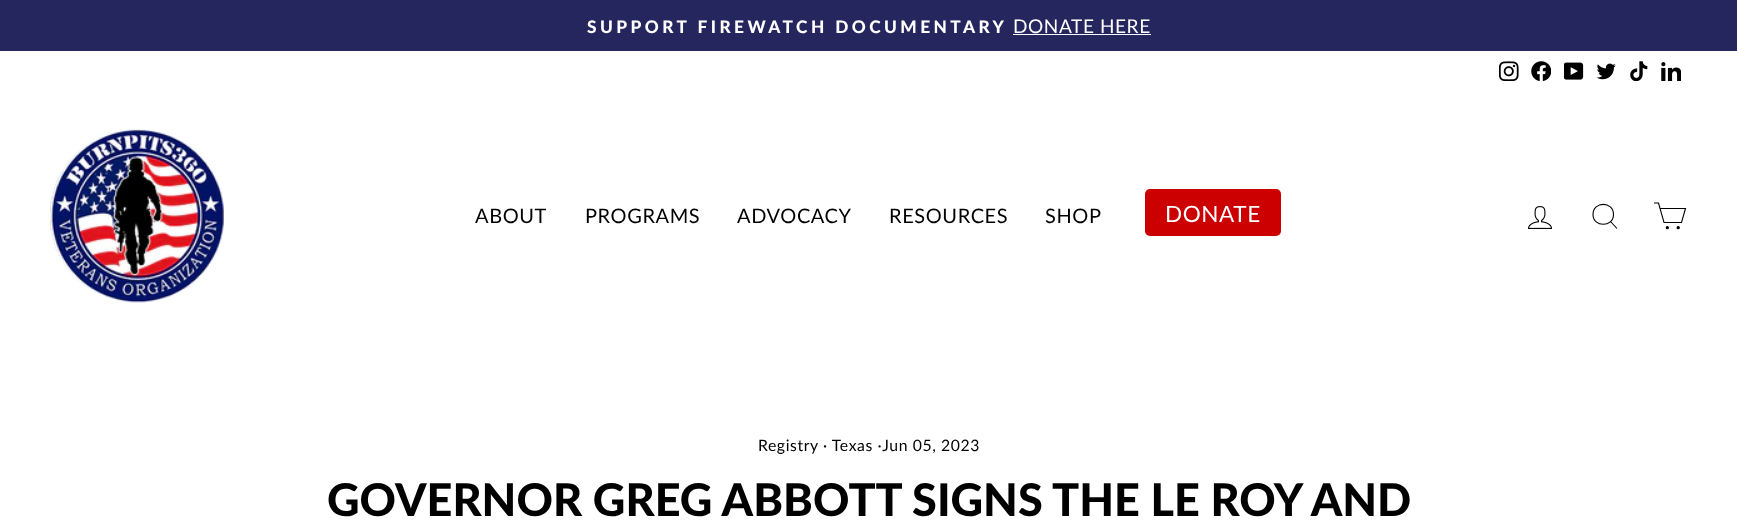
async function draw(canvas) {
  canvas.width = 1737;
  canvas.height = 522;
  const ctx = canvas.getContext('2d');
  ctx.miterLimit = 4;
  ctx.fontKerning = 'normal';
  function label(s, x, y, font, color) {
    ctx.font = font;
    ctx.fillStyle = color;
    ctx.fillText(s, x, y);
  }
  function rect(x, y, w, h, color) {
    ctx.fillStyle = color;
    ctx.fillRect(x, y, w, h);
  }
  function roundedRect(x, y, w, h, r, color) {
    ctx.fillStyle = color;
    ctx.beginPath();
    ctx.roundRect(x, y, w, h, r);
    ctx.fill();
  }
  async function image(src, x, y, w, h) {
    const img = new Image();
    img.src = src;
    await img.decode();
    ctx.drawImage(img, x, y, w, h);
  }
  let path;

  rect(0, 0, 1737, 522, '#fff');
  rect(0, 0, 1737, 51, '#26265f');
  ctx.letterSpacing = '3.45px';
  label('SUPPORT FIREWATCH DOCUMENTARY', 587, 33, '900 17.25px Lato', '#fff');
  ctx.letterSpacing = '0.6px';
  label('DONATE HERE', 1013, 33, '19px Lato', '#fff');
  rect(1013, 34, 138, 1, '#fff');
  await image('assets/img1.png', 1499, 61, 20, 20);
  await image('assets/img2.png', 1531, 61, 20, 20);
  await image('assets/img3.png', 1564, 62, 20, 18);
  await image('assets/img4.png', 1596, 63, 20, 17);
  await image('assets/img5.png', 1630, 61, 18, 20);
  await image('assets/img6.png', 1661, 62, 20, 19);
  ctx.fillStyle = '#00000033';
  ctx.filter = 'blur(0.5px)';
  ctx.beginPath();
  ctx.rect(0, 91, 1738, 250);
  ctx.fill();
  ctx.filter = 'none';
  rect(0, 91, 1737, 250, '#fff');
  await image('assets/img7.png', 50, 129, 174, 174);
  label('ABOUT', 475, 223, '20px Lato', '#000');
  label('PROGRAMS', 585, 223, '20px Lato', '#000');
  label('ADVOCACY', 737, 223, '20px Lato', '#000');
  label('RESOURCES', 889, 223, '20px Lato', '#000');
  label('SHOP', 1045, 223, '20px Lato', '#000');
  roundedRect(1145, 189, 136, 47, 5, '#c00');
  label('DONATE', 1165, 222, '22.5px Lato', '#fff');
  await image('assets/img8.png', 1528, 206, 24, 23);
  path = new Path2D('M1613.5 214.5C1613.5 227.5 1593 227.5 1593 214.5C1593 201 1613.5 201 1613.5 214.5ZM1617 228.5L1610.5 221.5');
  ctx.strokeStyle = '#000';
  ctx.lineWidth = 1.1;
  ctx.stroke(path);
  path = new Path2D('M1660 208.5H1685.5L1681.5 222.5H1664L1658.5 203H1654');
  ctx.stroke(path);
  ctx.fillStyle = '#000';
  ctx.beginPath();
  ctx.arc(1667.3, 227.7, 1.1, 0, 2 * Math.PI);
  ctx.fill();
  ctx.stroke();
  ctx.beginPath();
  ctx.arc(1678.2, 227.7, 1.1, 0, 2 * Math.PI);
  ctx.fill();
  ctx.stroke();
  label('Registry', 758, 451, '15.75px Lato', '#000');
  label('· Texas ·Jun 05, 2023', 823, 451, '15.75px Lato', '#000');
  ctx.letterSpacing = '0px';
  label('GOVERNOR GREG ABBOTT SIGNS THE LE ROY AND', 327, 516, '900 45px Lato', '#000');
}

draw(document.querySelector('canvas'));
